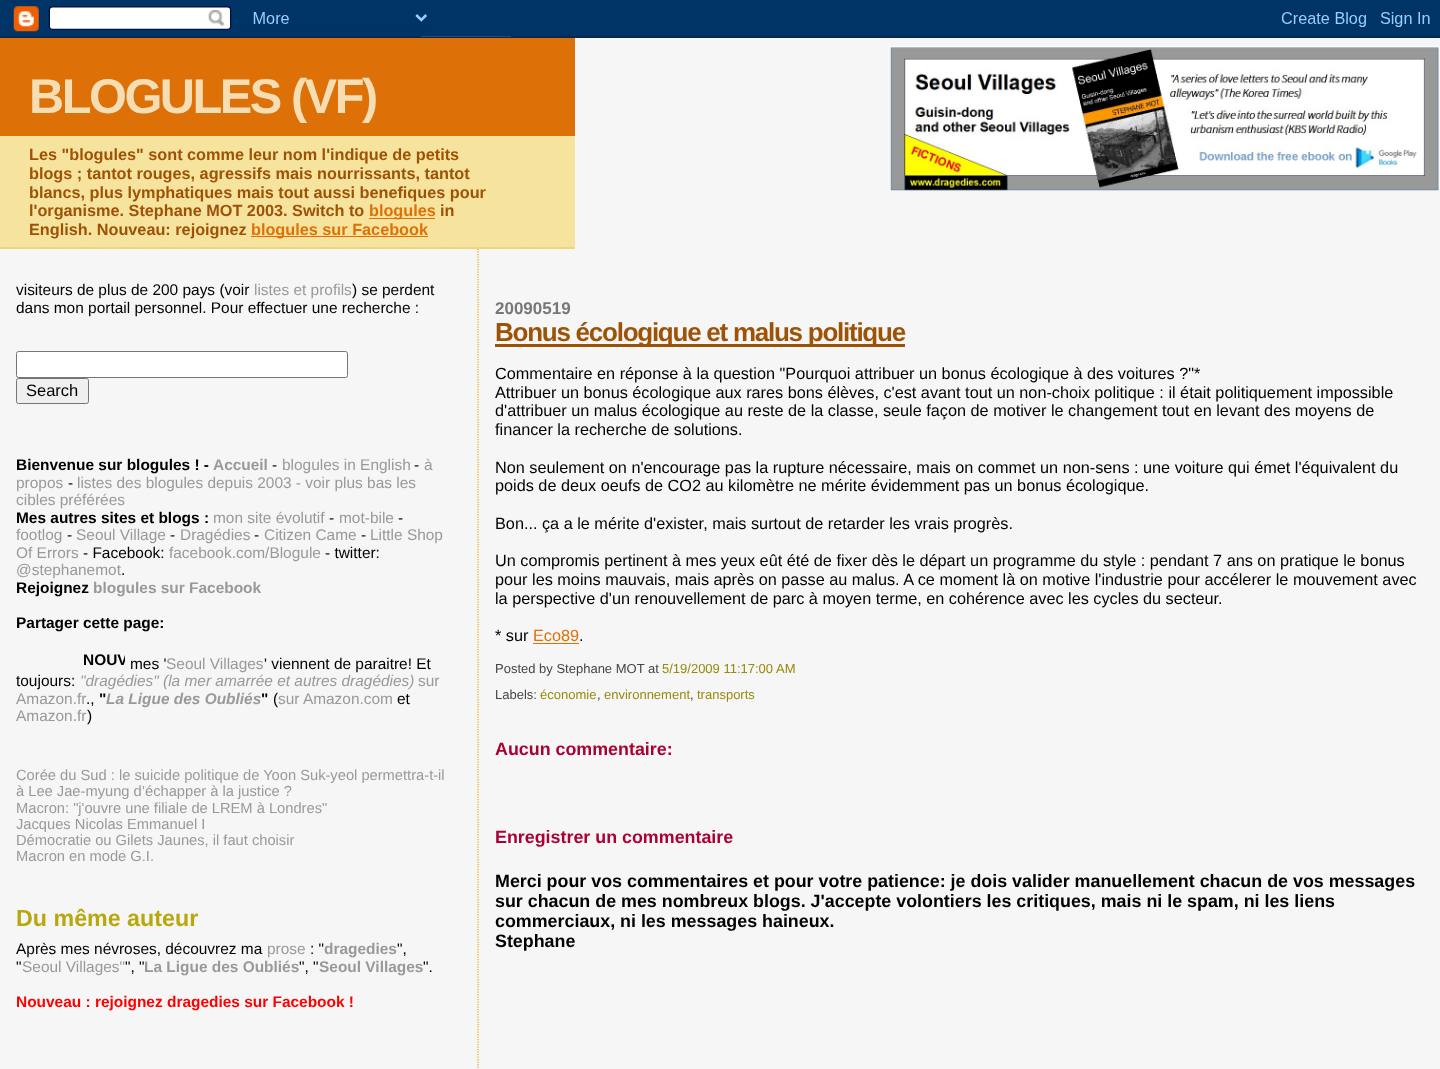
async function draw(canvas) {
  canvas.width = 1440;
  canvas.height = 1069;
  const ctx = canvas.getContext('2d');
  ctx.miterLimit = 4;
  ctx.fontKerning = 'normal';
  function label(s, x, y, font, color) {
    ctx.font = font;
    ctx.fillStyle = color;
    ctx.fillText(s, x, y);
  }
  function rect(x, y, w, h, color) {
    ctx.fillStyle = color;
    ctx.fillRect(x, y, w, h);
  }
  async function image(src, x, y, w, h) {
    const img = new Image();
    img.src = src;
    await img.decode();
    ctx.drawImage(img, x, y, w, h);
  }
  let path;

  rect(0, 0, 1440, 1069, '#f6f6f6');
  await image('assets/img1.png', 0, 0, 1440, 38);
  rect(0, 136, 575, 113, '#f5e39e');
  path = new Path2D('M0 248H575');
  ctx.strokeStyle = '#e0ad12';
  ctx.lineWidth = 1.2;
  ctx.setLineDash([1.25, 1.25]);
  ctx.stroke(path);
  rect(0, 38, 575, 98, '#de7008');
  ctx.letterSpacing = '-2.5px';
  label('BLOGULES (VF)', 29, 113, 'bold 48.75px Liberation Sans', '#f5deb3');
  ctx.letterSpacing = '0px';
  label('Les "blogules" sont comme leur nom l\'indique de petits', 29, 160, 'bold 16.25px Liberation Sans', '#9e5205');
  label('blogs ; tantot rouges, agressifs mais nourrissants, tantot', 29, 179, 'bold 16.25px Liberation Sans', '#9e5205');
  label('blancs, plus lymphatiques mais tout aussi benefiques pour', 29, 198, 'bold 16.25px Liberation Sans', '#9e5205');
  label('l\'organisme. Stephane MOT 2003. Switch to', 29, 216, 'bold 16.25px Liberation Sans', '#9e5205');
  rect(369, 218, 66, 1, '#de7008');
  label('blogules', 369, 216, 'bold 16.25px Liberation Sans', '#de7008');
  label('in', 440, 216, 'bold 16.25px Liberation Sans', '#9e5205');
  label('English. Nouveau: rejoignez', 29, 235, 'bold 16.25px Liberation Sans', '#9e5205');
  rect(251, 236, 177, 1, '#de7008');
  label('blogules sur Facebook', 251, 235, 'bold 16.25px Liberation Sans', '#de7008');
  await image('assets/img2.png', 890, 46, 550, 145);
  label('visiteurs de plus de 200 pays (voir', 16, 295, '15.45px Liberation Sans', '#000');
  label('listes et profils', 254, 295, '15.45px Liberation Sans', '#999');
  label(') se perdent', 352, 295, '15.45px Liberation Sans', '#000');
  label('dans mon portail personnel. Pour effectuer une recherche :', 16, 313, '15.45px Liberation Sans', '#000');
  ctx.fillStyle = '#fff';
  ctx.beginPath();
  ctx.roundRect(16.5, 351.5, 331, 26, 2);
  ctx.fill();
  ctx.strokeStyle = '#767676';
  ctx.lineWidth = 1;
  ctx.setLineDash([]);
  ctx.stroke();
  ctx.fillStyle = '#efefef';
  ctx.beginPath();
  ctx.roundRect(16.5, 378.5, 72, 25, 2);
  ctx.fill();
  ctx.stroke();
  label('Search', 26, 396, '16.5px Liberation Sans', '#000');
  label('Bienvenue sur blogules ! -', 16, 470, 'bold 15.45px Liberation Sans', '#000');
  label('Accueil', 213, 470, 'bold 15.45px Liberation Sans', '#999');
  label('-', 272, 470, '15.45px Liberation Sans', '#000');
  label('blogules in English', 282, 470, '15.45px Liberation Sans', '#999');
  label('-', 414, 470, '15.45px Liberation Sans', '#000');
  label('à', 424, 470, '15.45px Liberation Sans', '#999');
  label('propos', 16, 488, '15.45px Liberation Sans', '#999');
  label('-', 68, 488, '15.45px Liberation Sans', '#000');
  label('listes des blogules depuis 2003 - voir plus bas les', 77, 488, '15.45px Liberation Sans', '#999');
  label('cibles préférées', 16, 505, '15.45px Liberation Sans', '#999');
  label('Mes autres sites et blogs :', 16, 523, 'bold 15.45px Liberation Sans', '#000');
  label('mon site évolutif', 213, 523, '15.45px Liberation Sans', '#999');
  label('-', 329, 523, '15.45px Liberation Sans', '#000');
  label('mot-bile', 339, 523, '15.45px Liberation Sans', '#999');
  label('-', 398, 523, '15.45px Liberation Sans', '#000');
  label('footlog', 16, 540, '15.45px Liberation Sans', '#999');
  label('-', 67, 540, '15.45px Liberation Sans', '#000');
  label('Seoul Village', 76, 540, '15.45px Liberation Sans', '#999');
  label('-', 170, 540, '15.45px Liberation Sans', '#000');
  label('Dragédies', 180, 540, '15.45px Liberation Sans', '#999');
  label('-', 254, 540, '15.45px Liberation Sans', '#000');
  label('Citizen Came', 264, 540, '15.45px Liberation Sans', '#999');
  label('-', 361, 540, '15.45px Liberation Sans', '#000');
  label('Little Shop', 370, 540, '15.45px Liberation Sans', '#999');
  label('Of Errors', 16, 558, '15.45px Liberation Sans', '#999');
  label('- Facebook:', 83, 558, '15.45px Liberation Sans', '#000');
  label('facebook.com/Blogule', 169, 558, '15.45px Liberation Sans', '#999');
  label('- twitter:', 325, 558, '15.45px Liberation Sans', '#000');
  label('@stephanemot', 16, 575, '15.45px Liberation Sans', '#999');
  label('.', 121, 575, '15.45px Liberation Sans', '#000');
  label('Rejoignez', 16, 593, 'bold 15.45px Liberation Sans', '#000');
  label('blogules sur Facebook', 93, 593, 'bold 15.45px Liberation Sans', '#999');
  label('Partager cette page:', 16, 628, 'bold 15.45px Liberation Sans', '#000');
  ctx.save();
  ctx.beginPath();
  ctx.rect(16, 651, 109, 18);
  ctx.clip();
  label('NOUV', 83, 665, 'bold 15.45px Liberation Sans', '#000');
  ctx.restore();
  label('mes \'', 130, 669, '15.45px Liberation Sans', '#000');
  label('Seoul Villages', 166, 669, '15.45px Liberation Sans', '#999');
  label('\' viennent de paraitre! Et', 264, 669, '15.45px Liberation Sans', '#000');
  label('toujours:', 16, 686, '15.45px Liberation Sans', '#000');
  label('"dragédies" (la mer amarrée et autres dragédies)', 80, 686, 'italic 15.45px Liberation Sans', '#999');
  label('sur', 418, 686, '15.45px Liberation Sans', '#999');
  label('Amazon.fr', 16, 704, '15.45px Liberation Sans', '#999');
  label('.,', 86, 704, '15.45px Liberation Sans', '#000');
  label('"', 99, 704, 'bold 15.45px Liberation Sans', '#000');
  label('La Ligue des Oubliés', 106, 704, 'italic bold 15.45px Liberation Sans', '#999');
  label('"', 261, 704, 'bold 15.45px Liberation Sans', '#000');
  label('(', 273, 704, '15.45px Liberation Sans', '#000');
  label('sur Amazon.com', 278, 704, '15.45px Liberation Sans', '#999');
  label('et', 397, 704, '15.45px Liberation Sans', '#000');
  label('Amazon.fr', 16, 721, '15.45px Liberation Sans', '#999');
  label(')', 87, 721, '15.45px Liberation Sans', '#000');
  label('Corée du Sud : le suicide politique de Yoon Suk-yeol permettra-t-il', 16, 780, '14.7px Liberation Sans', '#999');
  label('à Lee Jae-myung d’échapper à la justice ?', 16, 796, '14.7px Liberation Sans', '#999');
  label('Macron: "j\'ouvre une filiale de LREM à Londres"', 16, 813, '14.7px Liberation Sans', '#999');
  label('Jacques Nicolas Emmanuel I', 16, 829, '14.7px Liberation Sans', '#999');
  label('Démocratie ou Gilets Jaunes, il faut choisir', 16, 845, '14.7px Liberation Sans', '#999');
  label('Macron en mode G.I.', 16, 861, '14.7px Liberation Sans', '#999');
  label('Du même auteur', 16, 926, 'bold 23.25px Liberation Sans', '#b8a80d');
  label('Après mes névroses, découvrez ma', 16, 954, '15.45px Liberation Sans', '#000');
  label('prose', 267, 954, '15.45px Liberation Sans', '#999');
  label(': "', 310, 954, '15.45px Liberation Sans', '#000');
  label('dragedies', 324, 954, 'bold 15.45px Liberation Sans', '#999');
  label('",', 397, 954, '15.45px Liberation Sans', '#000');
  label('"', 16, 972, '15.45px Liberation Sans', '#000');
  label('Seoul Villages"', 22, 972, '15.45px Liberation Sans', '#999');
  label('", "', 125, 972, '15.45px Liberation Sans', '#000');
  label('La Ligue des Oubliés', 144, 972, 'bold 15.45px Liberation Sans', '#999');
  label('", "', 299, 972, '15.45px Liberation Sans', '#000');
  label('Seoul Villages', 319, 972, 'bold 15.45px Liberation Sans', '#999');
  label('".', 423, 972, '15.45px Liberation Sans', '#000');
  label('Nouveau : rejoignez dragedies sur Facebook !', 16, 1007, 'bold 15.45px Liberation Sans', '#f00');
  path = new Path2D('M478 249V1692.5');
  ctx.strokeStyle = '#e0ad12';
  ctx.lineWidth = 1.2;
  ctx.setLineDash([1.25, 1.25]);
  ctx.stroke(path);
  label('20090519', 495, 314, 'bold 17px Liberation Sans', '#777');
  rect(495, 344, 410, 3, '#9e5205');
  ctx.letterSpacing = '-1.25px';
  label('Bonus écologique et malus politique', 495, 341, 'bold 26px Liberation Sans', '#9e5205');
  ctx.letterSpacing = '0px';
  label('Commentaire en réponse à la question "Pourquoi attribuer un bonus écologique à des voitures ?"*', 495, 379, '16.25px Liberation Sans', '#000');
  label('Attribuer un bonus écologique aux rares bons élèves, c\'est avant tout un non-choix politique : il était politiquement impossible', 495, 398, '16.25px Liberation Sans', '#000');
  label('d\'attribuer un malus écologique au reste de la classe, seule façon de motiver le changement tout en levant des moyens de', 495, 416, '16.25px Liberation Sans', '#000');
  label('financer la recherche de solutions.', 495, 435, '16.25px Liberation Sans', '#000');
  label('Non seulement on n\'encourage pas la rupture nécessaire, mais on commet un non-sens : une voiture qui émet l\'équivalent du', 495, 473, '16.25px Liberation Sans', '#000');
  label('poids de deux oeufs de CO2 au kilomètre ne mérite évidemment pas un bonus écologique.', 495, 491, '16.25px Liberation Sans', '#000');
  label('Bon... ça a le mérite d\'exister, mais surtout de retarder les vrais progrès.', 495, 529, '16.25px Liberation Sans', '#000');
  label('Un compromis pertinent à mes yeux eût été de fixer dès le départ un programme du style : pendant 7 ans on pratique le bonus', 495, 566, '16.25px Liberation Sans', '#000');
  label('pour les moins mauvais, mais après on passe au malus. A ce moment là on motive l\'industrie pour accélerer le mouvement avec', 495, 585, '16.25px Liberation Sans', '#000');
  label('la perspective d\'un renouvellement de parc à moyen terme, en cohérence avec les cycles du secteur.', 495, 604, '16.25px Liberation Sans', '#000');
  label('* sur', 495, 641, '16.25px Liberation Sans', '#000');
  label('Eco89', 533, 641, '16.25px Liberation Sans', '#de7008');
  rect(533, 643, 46, 1, '#de7008');
  label('.', 579, 641, '16.25px Liberation Sans', '#000');
  label('Posted by Stephane MOT at', 495, 673, '13px Liberation Sans', '#444');
  label('5/19/2009 11:17:00 AM', 662, 673, '13px Liberation Sans', '#968a0a');
  label('Labels:', 495, 699, '13px Liberation Sans', '#444');
  label('économie', 540, 699, '13px Liberation Sans', '#968a0a');
  label(',', 597, 699, '13px Liberation Sans', '#444');
  label('environnement', 604, 699, '13px Liberation Sans', '#968a0a');
  label(',', 690, 699, '13px Liberation Sans', '#444');
  label('transports', 697, 699, '13px Liberation Sans', '#968a0a');
  label('Aucun commentaire:', 495, 755, 'bold 17.88px Liberation Sans', '#a03');
  label('Enregistrer un commentaire', 495, 843, 'bold 17.88px Liberation Sans', '#a03');
  label('Merci pour vos commentaires et pour votre patience: je dois valider manuellement chacun de vos messages', 495, 887, 'bold 17.88px Liberation Sans', '#000');
  label('sur chacun de mes nombreux blogs. J\'accepte volontiers les critiques, mais ni le spam, ni les liens', 495, 907, 'bold 17.88px Liberation Sans', '#000');
  label('commerciaux, ni les messages haineux.', 495, 927, 'bold 17.88px Liberation Sans', '#000');
  label('Stephane', 495, 947, 'bold 17.88px Liberation Sans', '#000');
}

draw(document.querySelector('canvas'));
